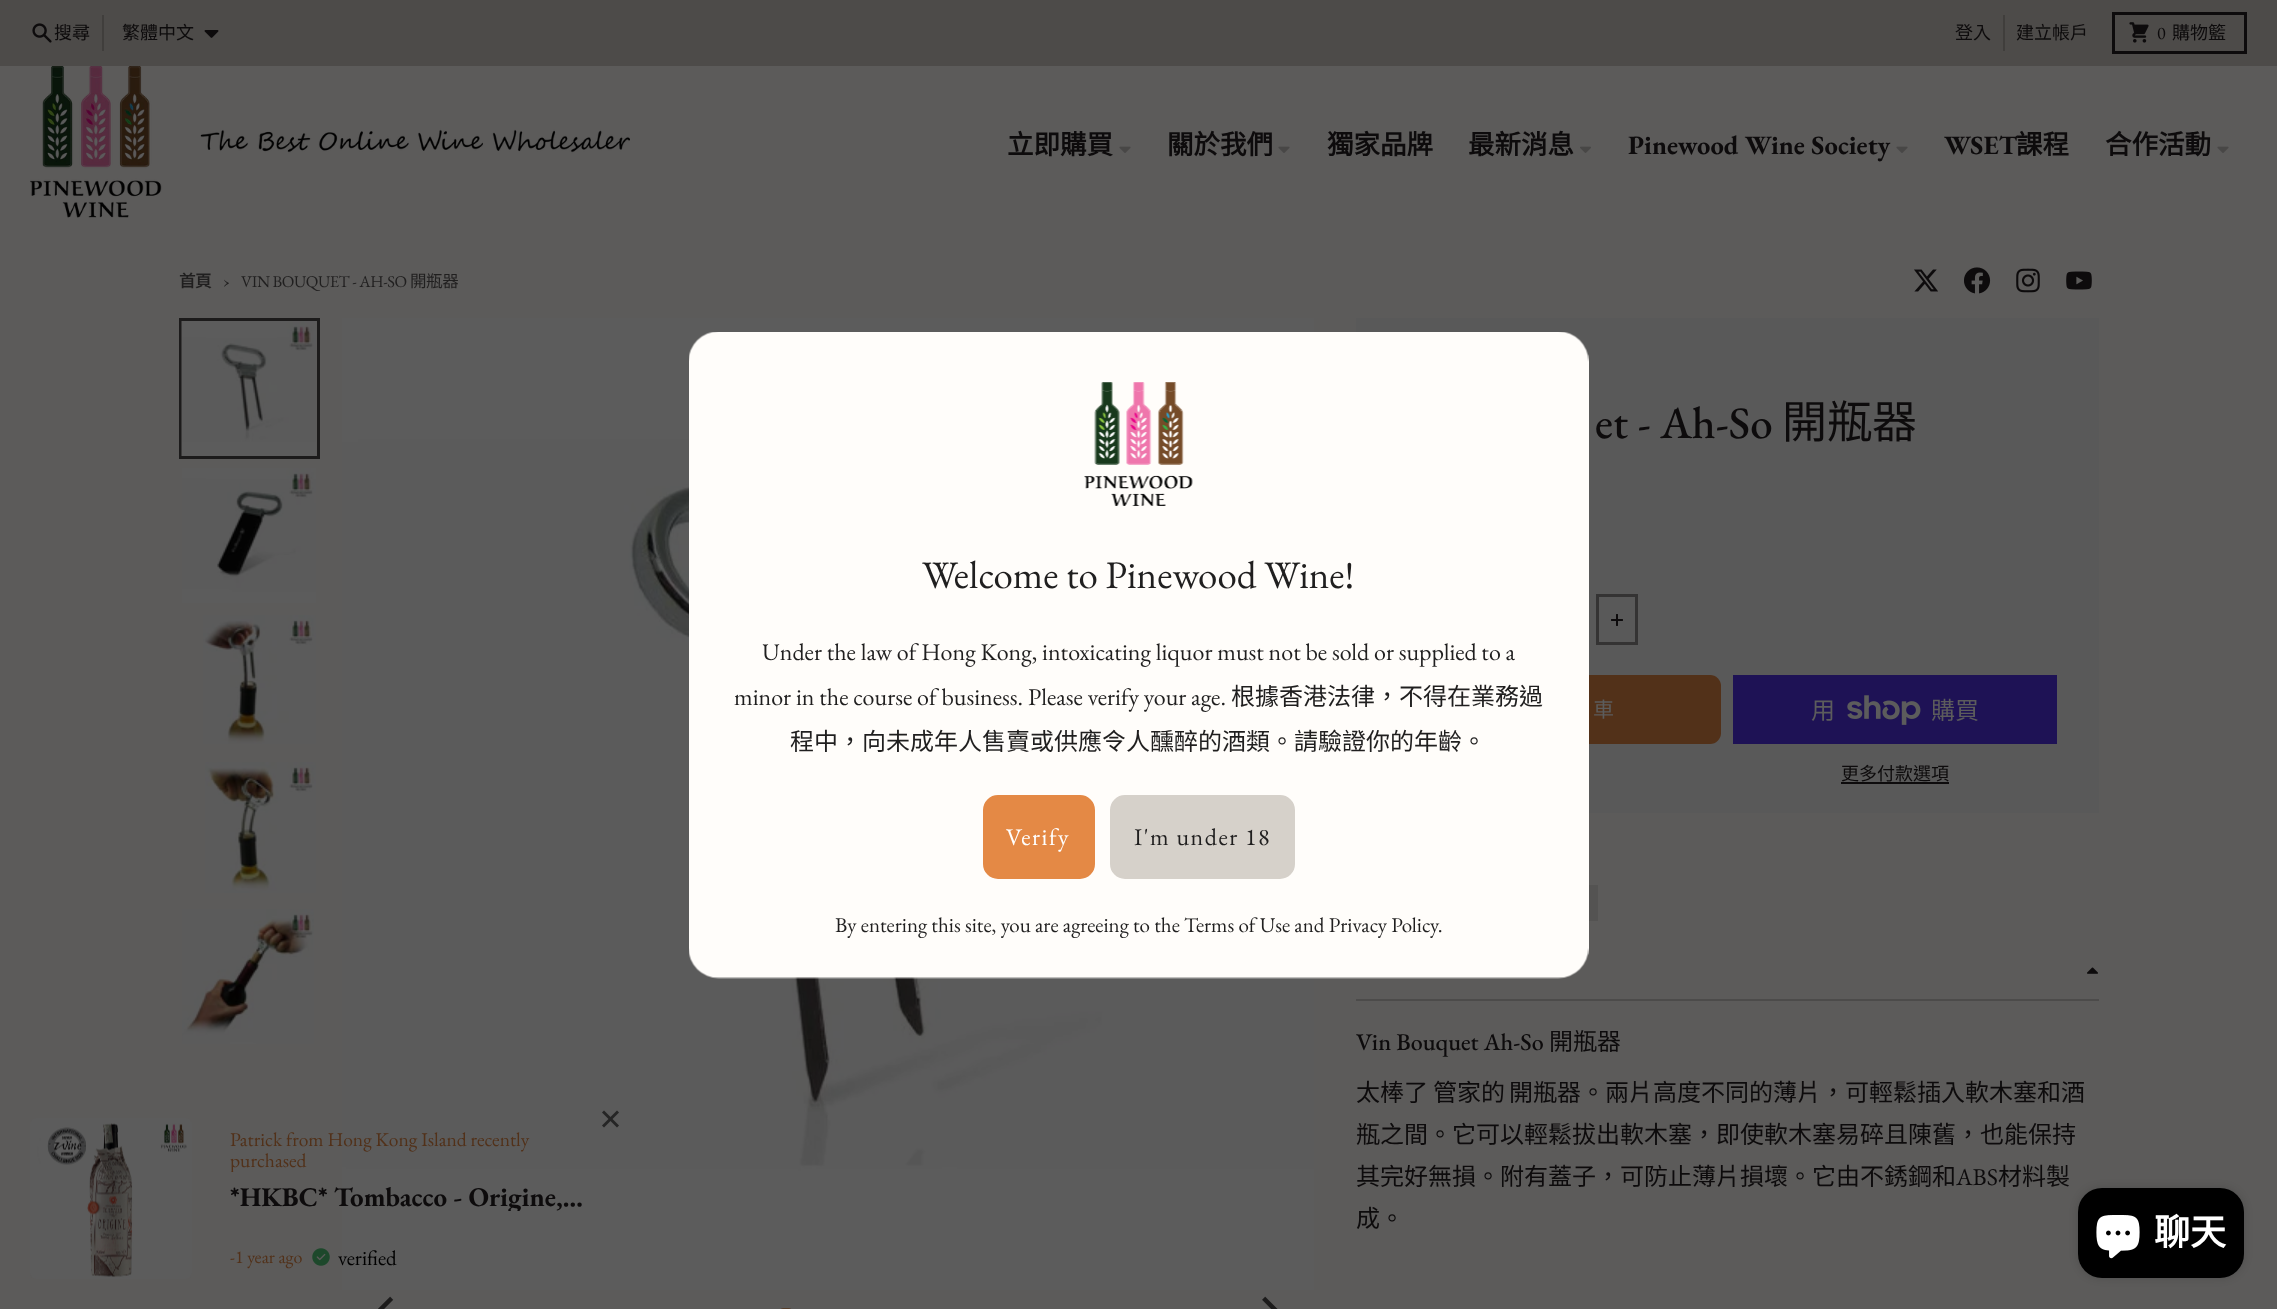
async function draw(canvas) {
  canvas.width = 2277;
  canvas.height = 1309;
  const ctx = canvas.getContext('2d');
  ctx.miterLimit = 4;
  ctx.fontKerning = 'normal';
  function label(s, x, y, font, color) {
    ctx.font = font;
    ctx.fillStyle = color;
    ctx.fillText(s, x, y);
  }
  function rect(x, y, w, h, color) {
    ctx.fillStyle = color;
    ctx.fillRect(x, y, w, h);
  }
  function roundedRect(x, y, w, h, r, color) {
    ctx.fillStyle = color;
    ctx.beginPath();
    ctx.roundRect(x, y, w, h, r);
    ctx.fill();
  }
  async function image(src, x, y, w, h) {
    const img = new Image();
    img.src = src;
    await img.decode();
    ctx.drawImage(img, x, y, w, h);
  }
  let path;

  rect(0, 0, 2277, 1309, '#5c5b5a');
  rect(0, 0, 2277, 66, '#4d4b49');
  await image('assets/img1.png', 32, 23, 20, 20);
  label('搜尋', 54, 39, '18px Noto Sans CJK TC', '#0d0b0c');
  rect(102, 15, 2, 36, '#403e3c');
  label('繁體中文', 122, 39, '18px Noto Sans CJK TC', '#0d0b0c');
  await image('assets/img2.png', 204, 30, 15, 8);
  label('登入', 1955, 39, '18px Noto Sans CJK TC', '#0d0b0c');
  rect(2003, 15, 2, 36, '#403e3c');
  label('建立帳戶', 2016, 39, '18px Noto Sans CJK TC', '#0d0b0c');
  ctx.strokeStyle = '#0d0b0c';
  ctx.lineWidth = 3;
  ctx.strokeRect(2113.5, 13.5, 132, 39);
  await image('assets/img3.png', 2129, 22, 20, 21);
  label('0', 2157, 39, '18px EB Garamond', '#0d0b0c');
  label('購物籃', 2172, 39, '18px Noto Sans CJK TC', '#0d0b0c');
  await image('assets/img4.png', 30, 66, 600, 152);
  label('立即購買', 1007, 154, 'bold 26.5px Noto Sans CJK TC', '#0d0b0c');
  await image('assets/img5.png', 1119, 146, 12, 7);
  label('關於我們', 1167, 154, 'bold 26.5px Noto Sans CJK TC', '#0d0b0c');
  await image('assets/img5.png', 1278, 146, 12, 7);
  label('獨家品牌', 1327, 154, 'bold 26.5px Noto Sans CJK TC', '#0d0b0c');
  label('最新消息', 1468, 154, 'bold 26.5px Noto Sans CJK TC', '#0d0b0c');
  await image('assets/img6.png', 1580, 146, 11, 7);
  label('Pinewood Wine Society', 1628, 154, 'bold 26.5px EB Garamond', '#0d0b0c');
  await image('assets/img5.png', 1896, 146, 12, 7);
  label('WSET', 1944, 154, 'bold 26.5px EB Garamond', '#0d0b0c');
  label('課程', 2016, 154, 'bold 26.5px Noto Sans CJK TC', '#0d0b0c');
  label('合作活動', 2105, 154, 'bold 26.5px Noto Sans CJK TC', '#0d0b0c');
  await image('assets/img5.png', 2217, 146, 12, 7);
  ctx.letterSpacing = '-0.4px';
  label('首頁', 179, 287, 'bold 16.5px Noto Sans CJK TC', '#201f1f');
  label('›', 223, 287, '18px EB Garamond', '#201f1f');
  label('VIN BOUQUET - AH-SO', 241, 287, '16.5px EB Garamond', '#201f1f');
  label('開瓶器', 410, 287, '16.5px Noto Sans CJK TC', '#201f1f');
  await image('assets/img7.png', 1914, 269, 24, 23);
  await image('assets/img8.png', 1964, 267, 27, 27);
  await image('assets/img9.png', 2016, 268, 24, 25);
  await image('assets/img10.png', 2066, 271, 26, 19);
  ctx.strokeStyle = '#1c1b1b';
  ctx.strokeRect(180.5, 319.5, 138, 138);
  await image('assets/img11.png', 181, 321, 135, 135);
  await image('assets/img12.png', 182, 468, 134, 135);
  await image('assets/img13.png', 203, 615, 113, 129);
  await image('assets/img14.png', 205, 762, 111, 131);
  await image('assets/img15.png', 182, 909, 132, 135);
  await image('assets/img16.png', 342, 318, 972, 972);
  await image('assets/img17.png', 378, 1296, 16, 13);
  await image('assets/img18.png', 1262, 1296, 16, 13);
  roundedRect(780, 1308, 12, 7, 6, '#553e2c');
  rect(1356, 318, 743, 495, '#595959');
  ctx.letterSpacing = '0px';
  label('et - Ah-So', 1595, 438, '500 45px EB Garamond', '#0d0b0c');
  label('開瓶器', 1782, 438, '45px Noto Sans CJK TC', '#0d0b0c');
  ctx.strokeStyle = '#343333';
  ctx.strokeRect(1597.5, 595.5, 39, 48);
  await image('assets/img19.png', 1611, 614, 12, 12);
  roundedRect(1398, 675, 323, 69, 11, '#523119');
  ctx.letterSpacing = '1px';
  label('車', 1593, 717, '21px Noto Sans CJK TC', '#5c5c5c');
  rect(1733, 675, 324, 69, '#1e1255');
  ctx.letterSpacing = '0px';
  label('用', 1811, 719, '24px Noto Sans CJK TC', '#5c5c5c');
  await image('assets/img20.png', 1847, 695, 74, 30);
  label('購買', 1931, 719, '24px Noto Sans CJK TC', '#5c5c5c');
  label('更多付款選項', 1841, 780, '18px Noto Sans CJK TC', '#0d0b0c');
  rect(1841, 782, 108, 2, '#0d0b0c');
  rect(1589, 885, 9, 36, '#545352');
  rect(1356, 999, 743, 2, '#4c4b4a');
  await image('assets/img21.png', 2087, 967, 11, 7);
  label('Vin Bouquet Ah-So', 1356, 1050, '500 24px EB Garamond', '#0d0b0c');
  label('開瓶器', 1549, 1050, '24px Noto Sans CJK TC', '#0d0b0c');
  label('太棒了', 1356, 1101, '24px Noto Sans CJK TC', '#0d0b0c');
  label('管家的', 1433, 1101, '24px Noto Sans CJK TC', '#0d0b0c');
  label('開瓶器。兩片高度不同的薄片，可輕鬆插入軟木塞和酒', 1509, 1101, '24px Noto Sans CJK TC', '#0d0b0c');
  label('瓶之間。它可以輕鬆拔出軟木塞，即使軟木塞易碎且陳舊，也能保持', 1356, 1143, '24px Noto Sans CJK TC', '#0d0b0c');
  label('其完好無損。附有蓋子，可防止薄片損壞。它由不銹鋼和', 1356, 1185, '24px Noto Sans CJK TC', '#0d0b0c');
  label('ABS', 1956, 1185, '24px EB Garamond', '#0d0b0c');
  label('材料製', 1998, 1185, '24px Noto Sans CJK TC', '#0d0b0c');
  label('成。', 1356, 1227, '24px Noto Sans CJK TC', '#0d0b0c');
  await image('assets/img22.png', 689, 332, 900, 647);
  await image('assets/img23.png', 1084, 382, 109, 124);
  label('Welcome to Pinewood Wine!', 922, 588, '39px EB Garamond', '#201f1f');
  label('Under the law of Hong Kong, intoxicating liquor must not be sold or supplied to a', 762, 660, '24px EB Garamond', '#201f1f');
  label('minor in the course of business. Please verify your age.', 734, 705, '24px EB Garamond', '#201f1f');
  label('根據香港法律，不得在業務過', 1231, 705, '24px Noto Sans CJK TC', '#201f1f');
  label('程中，向未成年人售賣或供應令人醺醉的酒類。請驗證你的年齡。', 790, 750, '24px Noto Sans CJK TC', '#201f1f');
  ctx.fillStyle = '#e48945';
  ctx.beginPath();
  ctx.roundRect(984, 796, 110, 82, 14);
  ctx.fill();
  ctx.strokeStyle = '#e48945';
  ctx.lineWidth = 2;
  ctx.stroke();
  ctx.letterSpacing = '1.5px';
  label('Verify', 1006, 845, '24px EB Garamond', '#fff');
  ctx.fillStyle = '#d6d1ca';
  ctx.beginPath();
  ctx.roundRect(1111, 796, 183, 82, 14);
  ctx.fill();
  ctx.strokeStyle = '#d6d1ca';
  ctx.stroke();
  label('I\'m under 18', 1134, 845, '24px EB Garamond', '#201f1f');
  ctx.letterSpacing = '0px';
  label('By entering this site, you are agreeing to the Terms of Use and Privacy Policy.', 835, 932, '21px EB Garamond', '#201f1f');
  await image('assets/img24.png', 30, 1118, 162, 161);
  ctx.fillStyle = '#252525';
  path = new Path2D('M602 1125.5L617 1110.5L619 1112.5L604 1127.5Z');
  ctx.fill(path);
  path = new Path2D('M604 1110.5L619 1125.5L617 1127.5L602 1112.5Z');
  ctx.fill(path);
  label('Patrick from Hong Kong Island recently', 230, 1146, '19.5px EB Garamond', '#523119');
  ctx.save();
  ctx.beginPath();
  ctx.rect(230, 1130, 378, 42);
  ctx.clip();
  label('purchased', 230, 1167, '19.5px EB Garamond', '#523119');
  ctx.restore();
  ctx.save();
  ctx.beginPath();
  ctx.rect(230, 1184, 358, 27);
  ctx.clip();
  label('*HKBC* Tombacco - Origine,…', 230, 1206, 'bold 27px EB Garamond', '#0d0b0c');
  ctx.restore();
  label('-1 year ago', 230, 1263, '18px EB Garamond', '#523119');
  await image('assets/img25.png', 312, 1248, 18, 18);
  label('verified', 338, 1265, '21px EB Garamond', '#000');
  ctx.fillStyle = '#00000026';
  ctx.filter = 'blur(4px)';
  ctx.beginPath();
  ctx.roundRect(2078, 1188, 166, 90, 24);
  ctx.fill();
  ctx.filter = 'none';
  roundedRect(2078, 1188, 166, 90, 24, '#000');
  await image('assets/img26.png', 2096, 1215, 44, 44);
  label('聊天', 2154, 1245, 'bold 36px Noto Sans CJK TC', '#fff');
}

draw(document.querySelector('canvas'));
